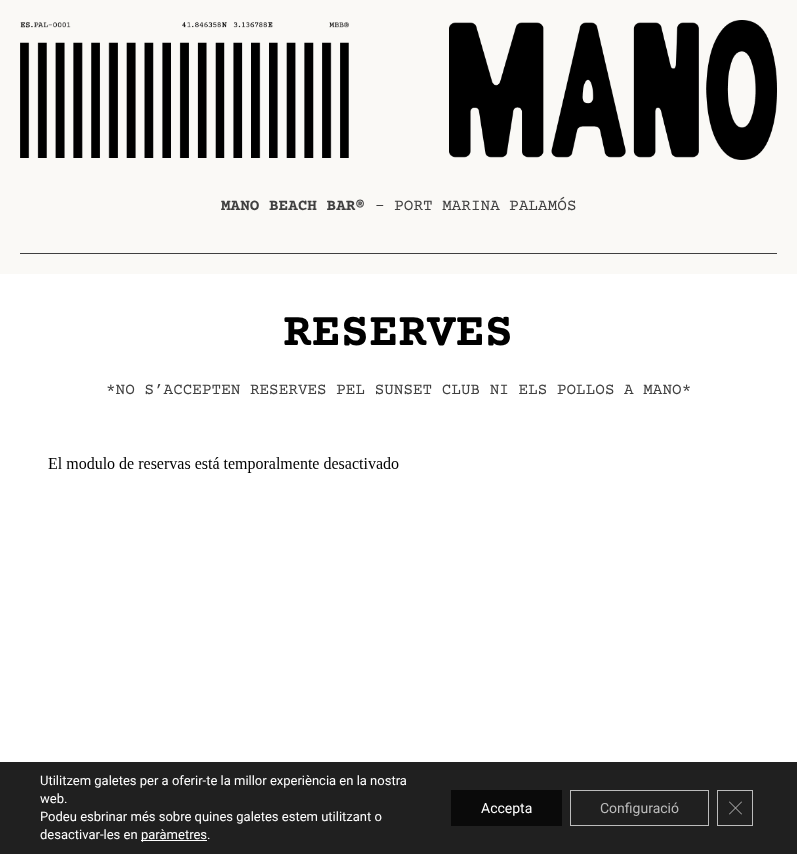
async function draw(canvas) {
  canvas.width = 797;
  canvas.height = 854;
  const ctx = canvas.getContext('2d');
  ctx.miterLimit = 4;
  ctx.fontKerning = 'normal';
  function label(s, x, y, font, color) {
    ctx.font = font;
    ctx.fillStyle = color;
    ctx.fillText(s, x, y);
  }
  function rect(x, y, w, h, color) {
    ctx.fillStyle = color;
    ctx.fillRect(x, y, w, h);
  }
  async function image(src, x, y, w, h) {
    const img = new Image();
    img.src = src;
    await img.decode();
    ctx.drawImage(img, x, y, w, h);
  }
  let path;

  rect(0, 0, 797, 854, '#fff');
  rect(0, 0, 797, 274, '#faf9f6');
  await image('assets/img1.png', 20, 22, 329, 136);
  await image('assets/img2.png', 449, 20, 328, 140);
  label('MANO BEACH BAR®', 221, 210, 'bold 16px Courier Prime', '#404040');
  label('– PORT MARINA PALAMÓS', 375, 210, '16px Courier Prime', '#404040');
  rect(20, 253, 757, 1, '#404040');
  label('RESERVES', 283, 345, 'bold 48px Courier Prime', '#000');
  label('*NO S’ACCEPTEN RESERVES PEL SUNSET CLUB NI ELS POLLOS A MANO*', 106, 394, '16px Courier Prime', '#404040');
  await image('assets/img3.png', 48, 457, 351, 16);
  rect(0, 762, 797, 92, '#202020');
  label('Utilitzem galetes per a oferir-te la millor experiència en la nostra', 40, 785, '13px Roboto', '#fff');
  label('web.', 40, 803, '13px Roboto', '#fff');
  label('Podeu esbrinar més sobre quines galetes estem utilitzant o', 40, 821, '13px Roboto', '#fff');
  label('desactivar-les en', 40, 839, '13px Roboto', '#fff');
  rect(141, 840, 66, 1, '#fff');
  label('paràmetres.', 141, 839, '13px Roboto', '#fff');
  rect(451, 790, 111, 36, '#0a0a0a');
  label('Accepta', 481, 813, '14px Roboto', '#fff');
  ctx.strokeStyle = '#bcbcbc';
  ctx.strokeRect(570.5, 790.5, 138, 35);
  label('Configuració', 600, 813, '14px Roboto', '#bcbcbc');
  ctx.strokeRect(717.5, 790.5, 35, 35);
  path = new Path2D('M741.5 801.5L742 802L729.5 814.5L729 814Z');
  ctx.fill(path);
  path = new Path2D('M729 802L729.5 801.5L742 814L741.5 814.5Z');
  ctx.fill(path);
}

draw(document.querySelector('canvas'));
